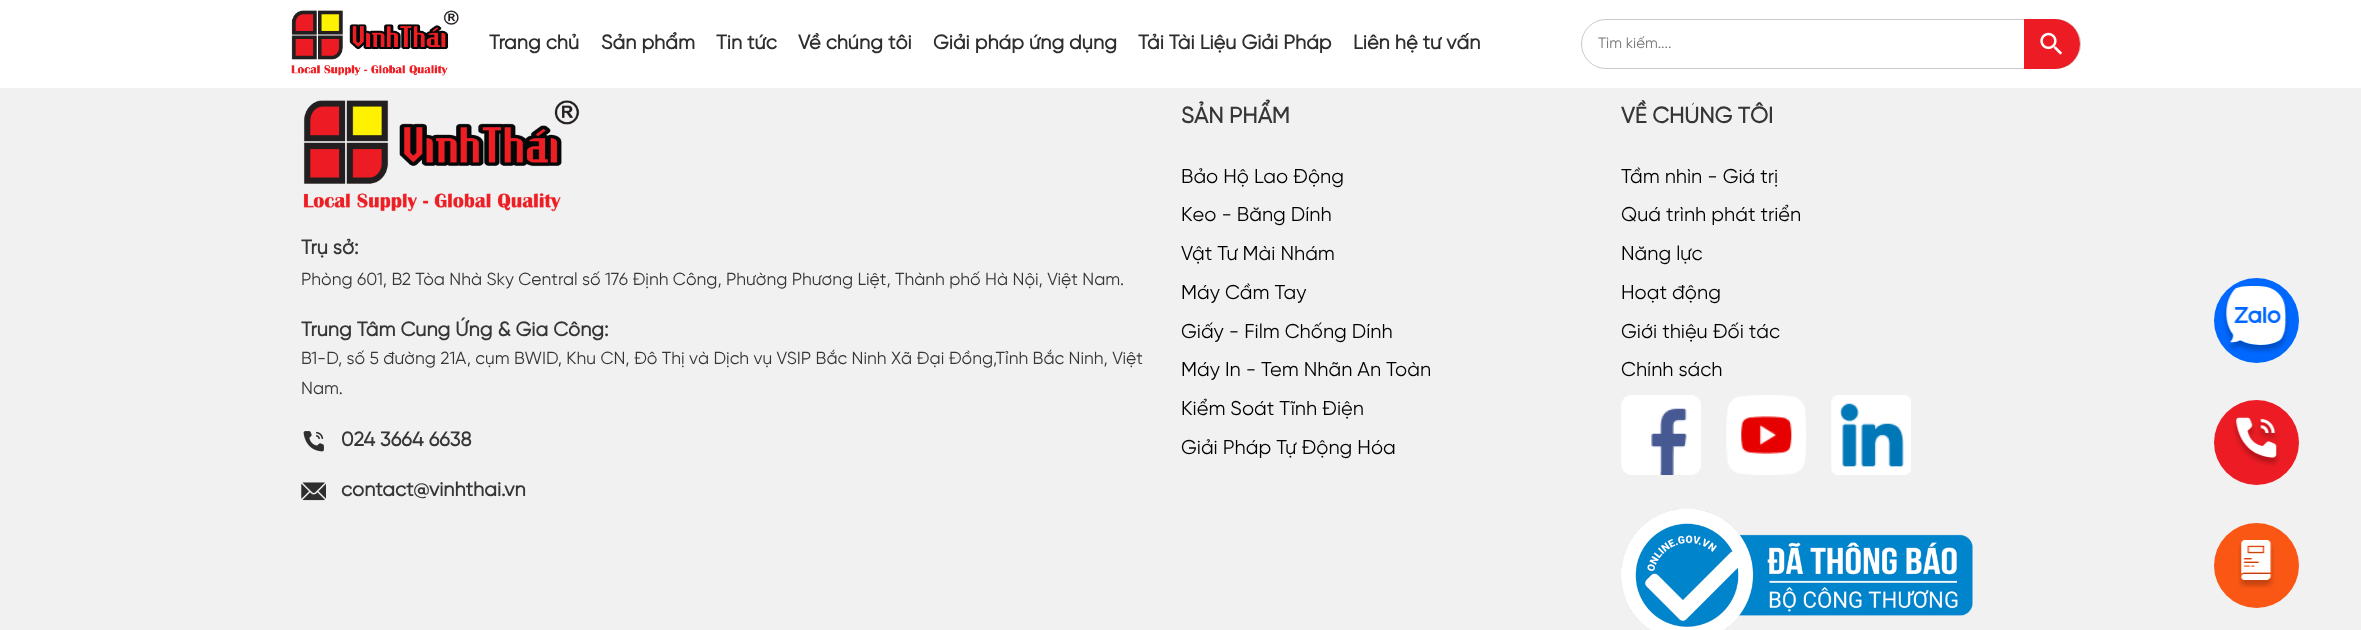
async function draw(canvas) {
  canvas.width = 2361;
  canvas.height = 630;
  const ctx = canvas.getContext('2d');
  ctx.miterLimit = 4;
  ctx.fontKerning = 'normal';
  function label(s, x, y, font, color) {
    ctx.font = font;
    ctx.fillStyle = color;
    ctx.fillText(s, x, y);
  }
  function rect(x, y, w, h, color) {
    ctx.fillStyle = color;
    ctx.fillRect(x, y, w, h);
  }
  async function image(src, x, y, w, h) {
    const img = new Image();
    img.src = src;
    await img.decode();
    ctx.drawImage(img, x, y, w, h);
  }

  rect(0, 0, 2361, 630, '#f1f1f1');
  rect(0, 0, 2361, 88, '#fff');
  await image('assets/img1.png', 291, 10, 168, 66);
  label('Trang chủ', 489, 49, 'bold 20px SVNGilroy', '#2e2e2e');
  label('Sản phẩm', 601, 49, 'bold 20px SVNGilroy', '#2e2e2e');
  label('Tin tức', 716, 49, 'bold 20px SVNGilroy', '#2e2e2e');
  label('Về chúng tôi', 798, 49, 'bold 20px SVNGilroy', '#2e2e2e');
  label('Giải pháp ứng dụng', 933, 49, 'bold 20px SVNGilroy', '#2e2e2e');
  label('Tải Tài Liệu Giải Pháp', 1138, 49, 'bold 20px SVNGilroy', '#2e2e2e');
  label('Liên hệ tư vấn', 1353, 49, 'bold 20px SVNGilroy', '#2e2e2e');
  ctx.beginPath();
  ctx.roundRect(1581.5, 19.5, 499, 49, 24.5);
  ctx.strokeStyle = '#cacaca';
  ctx.stroke();
  label('Tìm kiếm....', 1598, 48, '15px SVNGilroy', '#757575');
  ctx.fillStyle = '#ed1c24';
  ctx.beginPath();
  ctx.roundRect(2024, 19, 56, 50, [0, 25, 25, 0]);
  ctx.fill();
  await image('assets/img2.png', 2040, 32, 23, 23);
  await image('assets/img3.png', 303, 100, 277, 112);
  label('Trụ sở:', 301, 254, 'bold 20px SVNGilroy', '#363636');
  label('Phòng 601, B2 Tòa Nhà Sky Central số 176 Định Công, Phường Phương Liệt, Thành phố Hà Nội, Việt Nam.', 301, 285, '17.5px SVNGilroy', '#363636');
  label('Trung Tâm Cung Ứng & Gia Công:', 301, 336, 'bold 20px SVNGilroy', '#363636');
  label('B1-D, số 5 đường 21A, cụm BWID, Khu CN, Đô Thị và Dịch vụ VSIP Bắc Ninh Xã Đại Đồng,Tỉnh Bắc Ninh, Việt', 301, 364, '17.5px SVNGilroy', '#363636');
  label('Nam.', 301, 394, '17.5px SVNGilroy', '#363636');
  await image('assets/img4.png', 303, 431, 21, 21);
  label('024 3664 6638', 341, 446, 'bold 20px SVNGilroy', '#363636');
  await image('assets/img5.png', 301, 482, 25, 19);
  label('contact@vinhthai.vn', 341, 496, 'bold 20px SVNGilroy', '#363636');
  label('SẢN PHẨM', 1181, 123, 'bold 22.5px SVNGilroy', '#363636');
  label('Bảo Hộ Lao Động', 1181, 183, '20px SVNGilroy', '#000');
  label('Keo - Băng Dính', 1181, 221, '20px SVNGilroy', '#000');
  label('Vật Tư Mài Nhám', 1181, 260, '20px SVNGilroy', '#000');
  label('Máy Cầm Tay', 1181, 299, '20px SVNGilroy', '#000');
  label('Giấy - Film Chống Dính', 1181, 338, '20px SVNGilroy', '#000');
  label('Máy In - Tem Nhãn An Toàn', 1181, 376, '20px SVNGilroy', '#000');
  label('Kiểm Soát Tĩnh Điện', 1181, 415, '20px SVNGilroy', '#000');
  label('Giải Pháp Tự Động Hóa', 1181, 454, '20px SVNGilroy', '#000');
  label('VỀ CHÚNG TÔI', 1621, 123, 'bold 22.5px SVNGilroy', '#363636');
  label('Tầm nhìn - Giá trị', 1621, 183, '20px SVNGilroy', '#000');
  label('Quá trình phát triển', 1621, 221, '20px SVNGilroy', '#000');
  label('Năng lực', 1621, 260, '20px SVNGilroy', '#000');
  label('Hoạt động', 1621, 299, '20px SVNGilroy', '#000');
  label('Giới thiệu Đối tác', 1621, 338, '20px SVNGilroy', '#000');
  label('Chính sách', 1621, 376, '20px SVNGilroy', '#000');
  await image('assets/img6.png', 1621, 395, 80, 80);
  await image('assets/img7.png', 1726, 395, 80, 80);
  await image('assets/img8.png', 1831, 395, 80, 80);
  await image('assets/img9.png', 1621, 508, 352, 122);
  ctx.fillStyle = '#0068ff';
  ctx.beginPath();
  ctx.arc(2256.5, 320.5, 42.5, 0, 2 * Math.PI);
  ctx.fill();
  await image('assets/img10.png', 2223, 286, 67, 67);
  ctx.fillStyle = '#ed1c24';
  ctx.beginPath();
  ctx.arc(2256.5, 442.5, 42.5, 0, 2 * Math.PI);
  ctx.fill();
  await image('assets/img11.png', 2233, 417, 47, 49);
  ctx.fillStyle = '#fa5715';
  ctx.beginPath();
  ctx.arc(2256.5, 565.5, 42.5, 0, 2 * Math.PI);
  ctx.fill();
  await image('assets/img12.png', 2238, 540, 37, 48);
}

draw(document.querySelector('canvas'));
